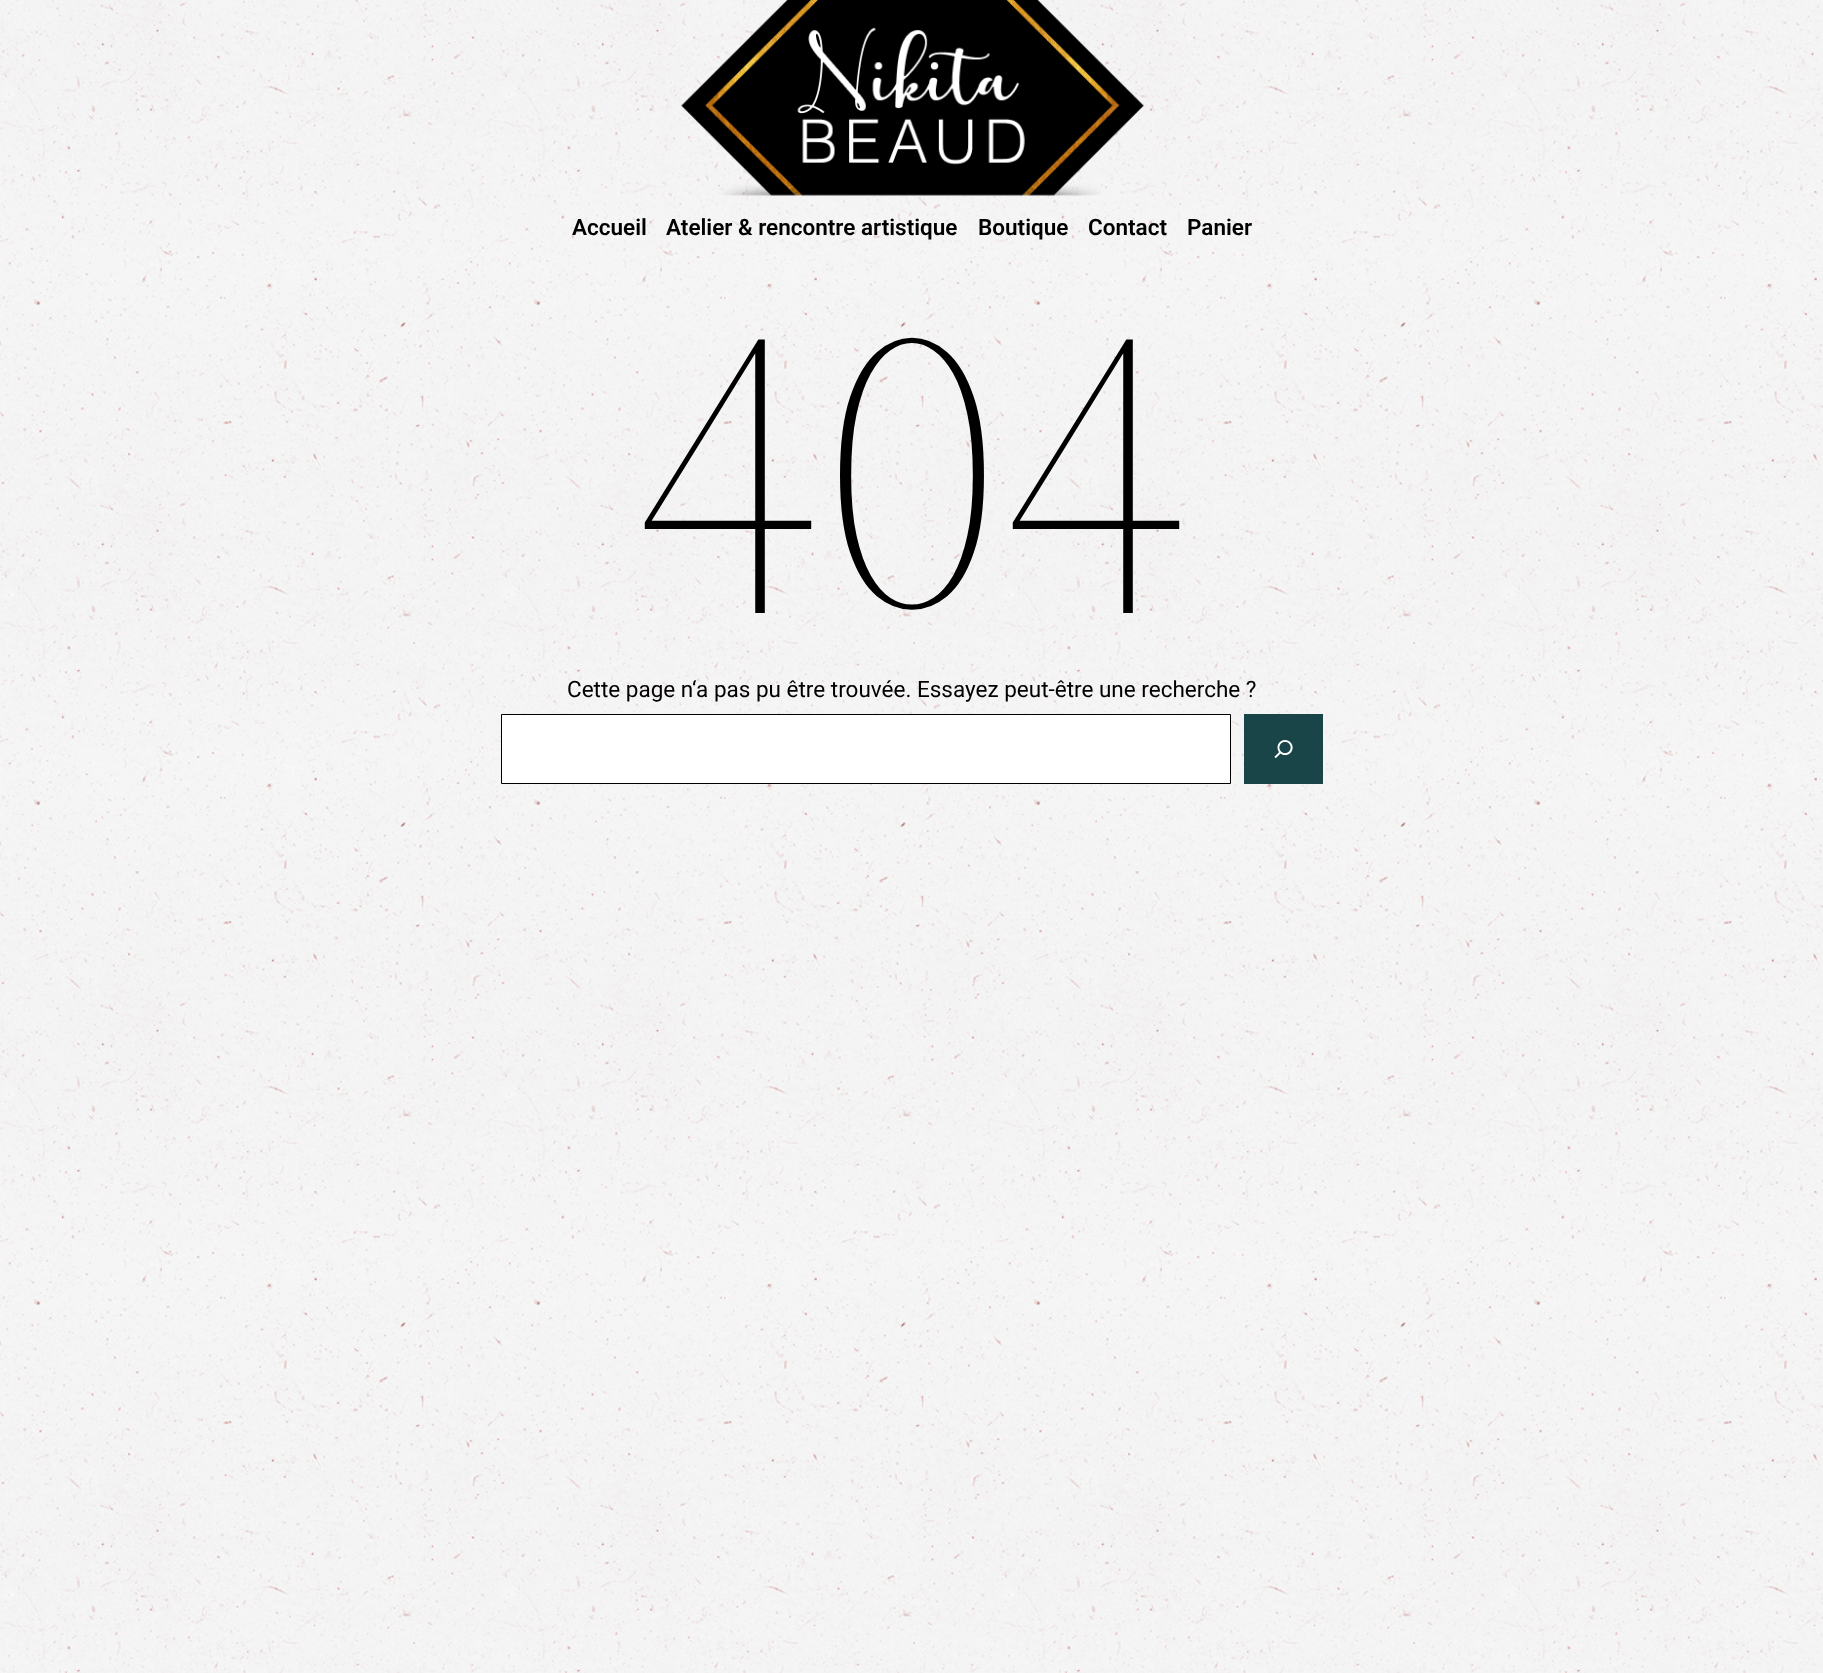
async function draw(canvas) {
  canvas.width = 1823;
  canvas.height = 1673;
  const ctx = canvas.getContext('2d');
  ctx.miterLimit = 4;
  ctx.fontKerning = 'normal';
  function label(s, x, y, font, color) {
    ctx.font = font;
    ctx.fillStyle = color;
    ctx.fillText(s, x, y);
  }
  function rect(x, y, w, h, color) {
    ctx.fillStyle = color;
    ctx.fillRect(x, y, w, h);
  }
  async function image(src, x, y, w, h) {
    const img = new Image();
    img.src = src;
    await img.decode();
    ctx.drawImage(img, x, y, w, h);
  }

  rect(0, 0, 1823, 1673, '#fff');
  await image('assets/img1.png', 0, 0, 1823, 1673);
  await image('assets/img2.png', 681, 0, 463, 196);
  label('Accueil', 572, 235, '600 22.5px Roboto', '#000');
  label('Atelier & rencontre artistique', 666, 235, '600 22.5px Roboto', '#000');
  label('Boutique', 978, 235, '600 22.5px Roboto', '#000');
  label('Contact', 1088, 235, '600 22.5px Roboto', '#000');
  label('Panier', 1187, 235, '600 22.5px Roboto', '#000');
  label('404', 636, 605, '200 400px "Source Serif 4"', '#000');
  label('Cette page n‘a pas pu être trouvée. Essayez peut-être une recherche ?', 567, 697, '22.5px Roboto', '#000');
  ctx.fillStyle = '#fff';
  ctx.beginPath();
  ctx.rect(501.5, 714.5, 729, 69);
  ctx.fill();
  ctx.strokeStyle = '#000';
  ctx.stroke();
  rect(1244, 714, 79, 70, '#1a4548');
  await image('assets/img3.png', 1274, 740, 19, 19);
}

draw(document.querySelector('canvas'));
